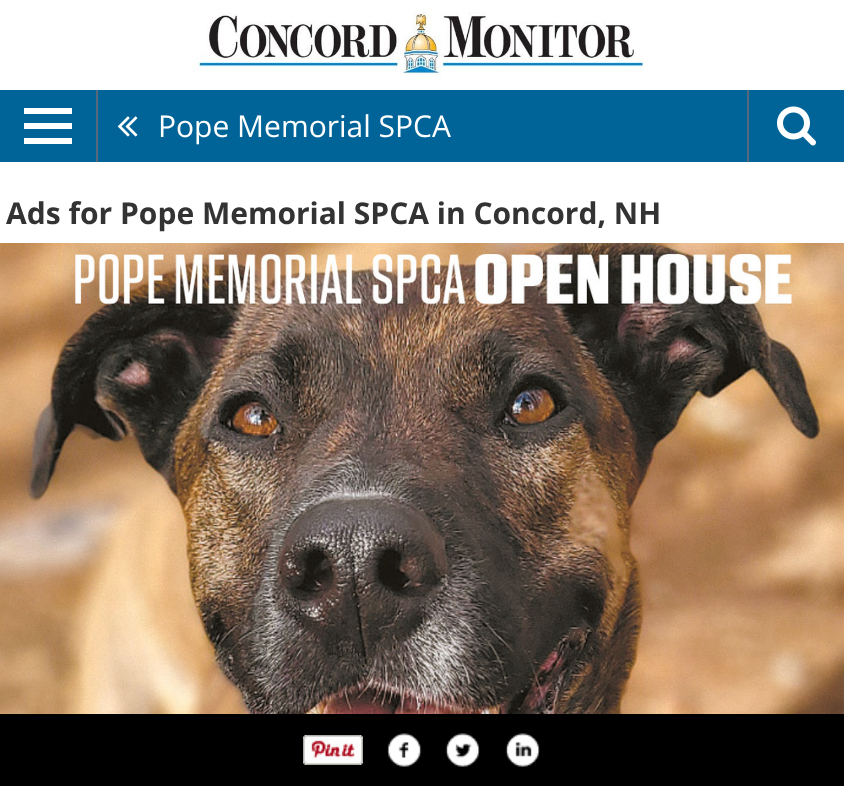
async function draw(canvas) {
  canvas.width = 844;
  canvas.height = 786;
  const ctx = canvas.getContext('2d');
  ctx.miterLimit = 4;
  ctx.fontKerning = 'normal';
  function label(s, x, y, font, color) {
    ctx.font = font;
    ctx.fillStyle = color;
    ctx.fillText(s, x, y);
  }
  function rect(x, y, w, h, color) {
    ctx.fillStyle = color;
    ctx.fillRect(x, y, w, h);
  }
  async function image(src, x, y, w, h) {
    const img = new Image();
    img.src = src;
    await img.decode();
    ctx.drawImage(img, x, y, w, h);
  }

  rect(0, 0, 844, 786, '#fff');
  await image('assets/img1.png', 192, 8, 452, 73);
  rect(0, 90, 844, 72, '#006498');
  rect(24, 108, 48, 6, '#fff');
  rect(24, 123, 48, 6, '#fff');
  rect(24, 138, 48, 6, '#fff');
  rect(747, 90, 2, 72, '#57677c');
  rect(96, 90, 2, 72, '#57677c');
  await image('assets/img2.png', 117, 116, 21, 21);
  label('Pope Memorial SPCA', 158, 137, '30px Open Sans', '#fff');
  await image('assets/img3.png', 777, 106, 39, 40);
  label('Ads for Pope Memorial SPCA in Concord, NH', 6, 224, 'bold 30px Open Sans', '#333');
  await image('assets/img4.png', 0, 243, 844, 471);
  rect(0, 714, 844, 72, '#000');
  await image('assets/img5.png', 303, 735, 60, 30);
  await image('assets/img6.png', 387, 733, 35, 34);
  await image('assets/img7.png', 445, 733, 35, 34);
  await image('assets/img8.png', 505, 733, 35, 34);
}

draw(document.querySelector('canvas'));
